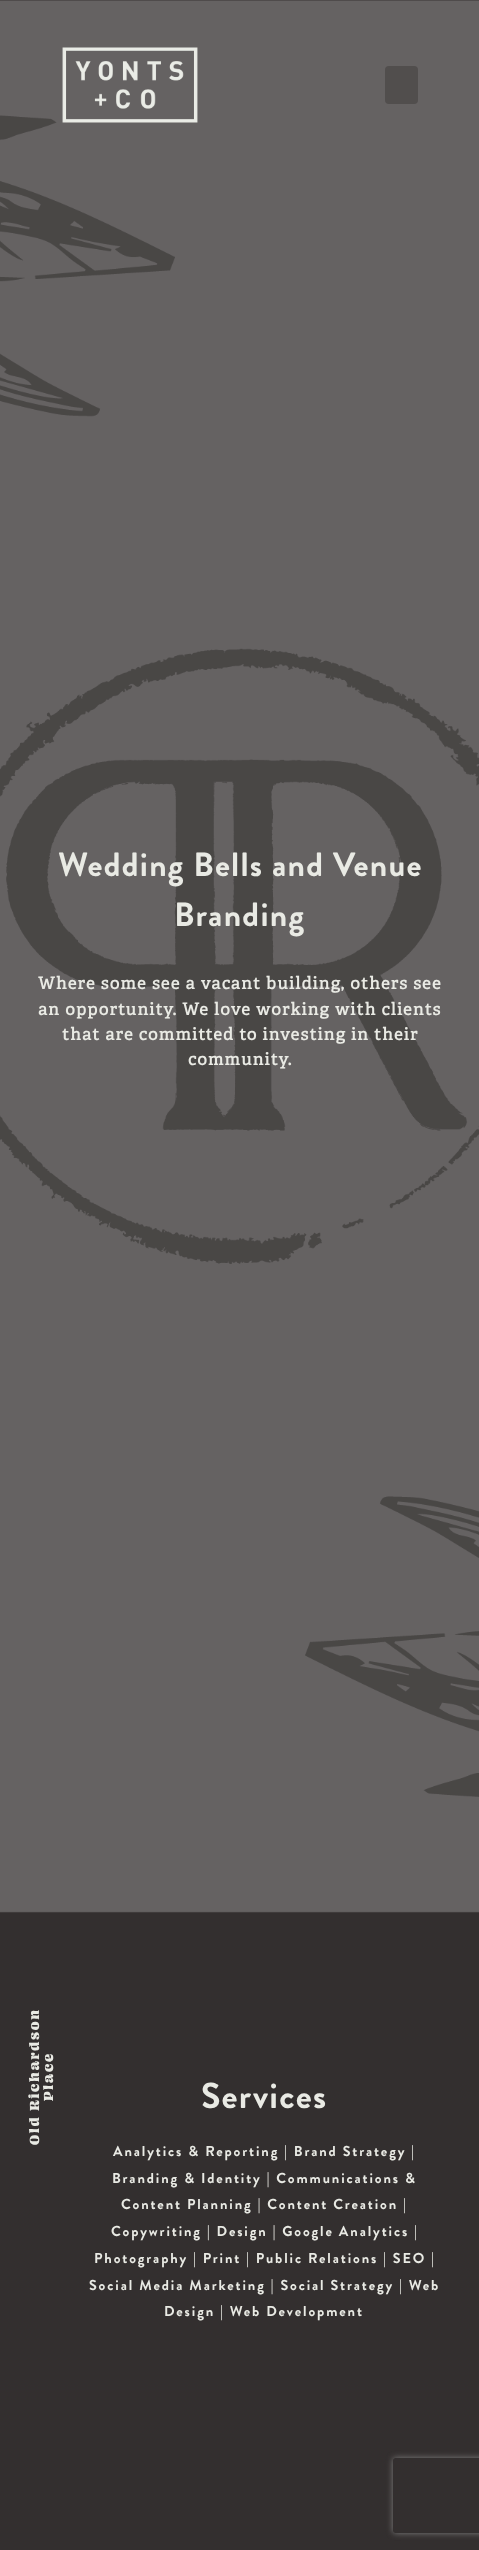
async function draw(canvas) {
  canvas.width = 479;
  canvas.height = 2550;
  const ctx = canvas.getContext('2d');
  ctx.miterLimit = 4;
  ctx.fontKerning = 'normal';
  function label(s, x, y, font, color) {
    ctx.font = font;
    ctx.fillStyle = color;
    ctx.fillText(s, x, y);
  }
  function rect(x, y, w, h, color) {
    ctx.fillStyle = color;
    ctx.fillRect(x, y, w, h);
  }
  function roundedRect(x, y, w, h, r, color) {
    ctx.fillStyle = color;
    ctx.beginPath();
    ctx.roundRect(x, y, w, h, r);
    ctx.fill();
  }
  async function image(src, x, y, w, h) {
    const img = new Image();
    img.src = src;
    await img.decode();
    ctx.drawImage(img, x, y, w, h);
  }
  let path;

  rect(0, 0, 479, 2550, '#332f2f');
  await image('assets/img2.png', 0, 0, 479, 1913);
  await image('assets/img1.png', 62, 47, 136, 76);
  roundedRect(385, 66, 33, 38, 4, '#514e4d');
  ctx.letterSpacing = '1.25px';
  label('Wedding Bells and Venue', 58, 876, 'bold 33.6px Brandon Grotesque', '#e9eae4');
  label('Branding', 174, 926, 'bold 33.6px Brandon Grotesque', '#e9eae4');
  label('Where some see a vacant building, others see', 38, 989, 'bold 16.8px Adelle', '#e9eae4');
  label('an opportunity. We love working with clients', 38, 1015, 'bold 16.8px Adelle', '#e9eae4');
  label('that are committed to investing in their', 62, 1040, 'bold 16.8px Adelle', '#e9eae4');
  label('community.', 188, 1065, 'bold 16.8px Adelle', '#e9eae4');
  ctx.letterSpacing = '1.9px';
  ctx.font = '300 14.4px "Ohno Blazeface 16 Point"';
  ctx.save();
  ctx.translate(39, 2145);
  ctx.rotate(-90 * Math.PI / 180);
  ctx.fillText('Old Richardson', 0, 0);
  ctx.restore();
  ctx.save();
  ctx.translate(53, 2101);
  ctx.rotate(-90 * Math.PI / 180);
  ctx.fillText('Place', 0, 0);
  ctx.restore();
  ctx.letterSpacing = '1.25px';
  label('Services', 201, 2108, 'bold 36px Brandon Grotesque', '#e9eae4');
  ctx.letterSpacing = '1.9px';
  label('Analytics & Reporting | Brand Strategy |', 113, 2156, 'bold 14.4px Brandon Grotesque', '#e9eae4');
  label('Branding & Identity | Communications &', 112, 2183, 'bold 14.4px Brandon Grotesque', '#e9eae4');
  label('Content Planning | Content Creation |', 121, 2209, 'bold 14.4px Brandon Grotesque', '#e9eae4');
  label('Copywriting | Design | Google Analytics |', 111, 2236, 'bold 14.4px Brandon Grotesque', '#e9eae4');
  label('Photography | Print | Public Relations | SEO |', 94, 2263, 'bold 14.4px Brandon Grotesque', '#e9eae4');
  label('Social Media Marketing | Social Strategy | Web', 89, 2290, 'bold 14.4px Brandon Grotesque', '#e9eae4');
  label('Design | Web Development', 164, 2316, 'bold 14.4px Brandon Grotesque', '#e9eae4');
  ctx.save();
  path = new Path2D('M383 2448H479V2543H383ZM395.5 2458H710.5C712 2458 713 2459 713 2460.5V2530.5C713 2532 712 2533 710.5 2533H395.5C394 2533 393 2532 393 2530.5V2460.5C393 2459 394 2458 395.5 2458Z');
  ctx.clip(path, 'evenodd');
  ctx.fillStyle = '#808080';
  ctx.filter = 'blur(3px)';
  ctx.beginPath();
  ctx.roundRect(393, 2458, 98, 75, 2.5);
  ctx.fill();
  ctx.filter = 'none';
  ctx.restore();
}

draw(document.querySelector('canvas'));
